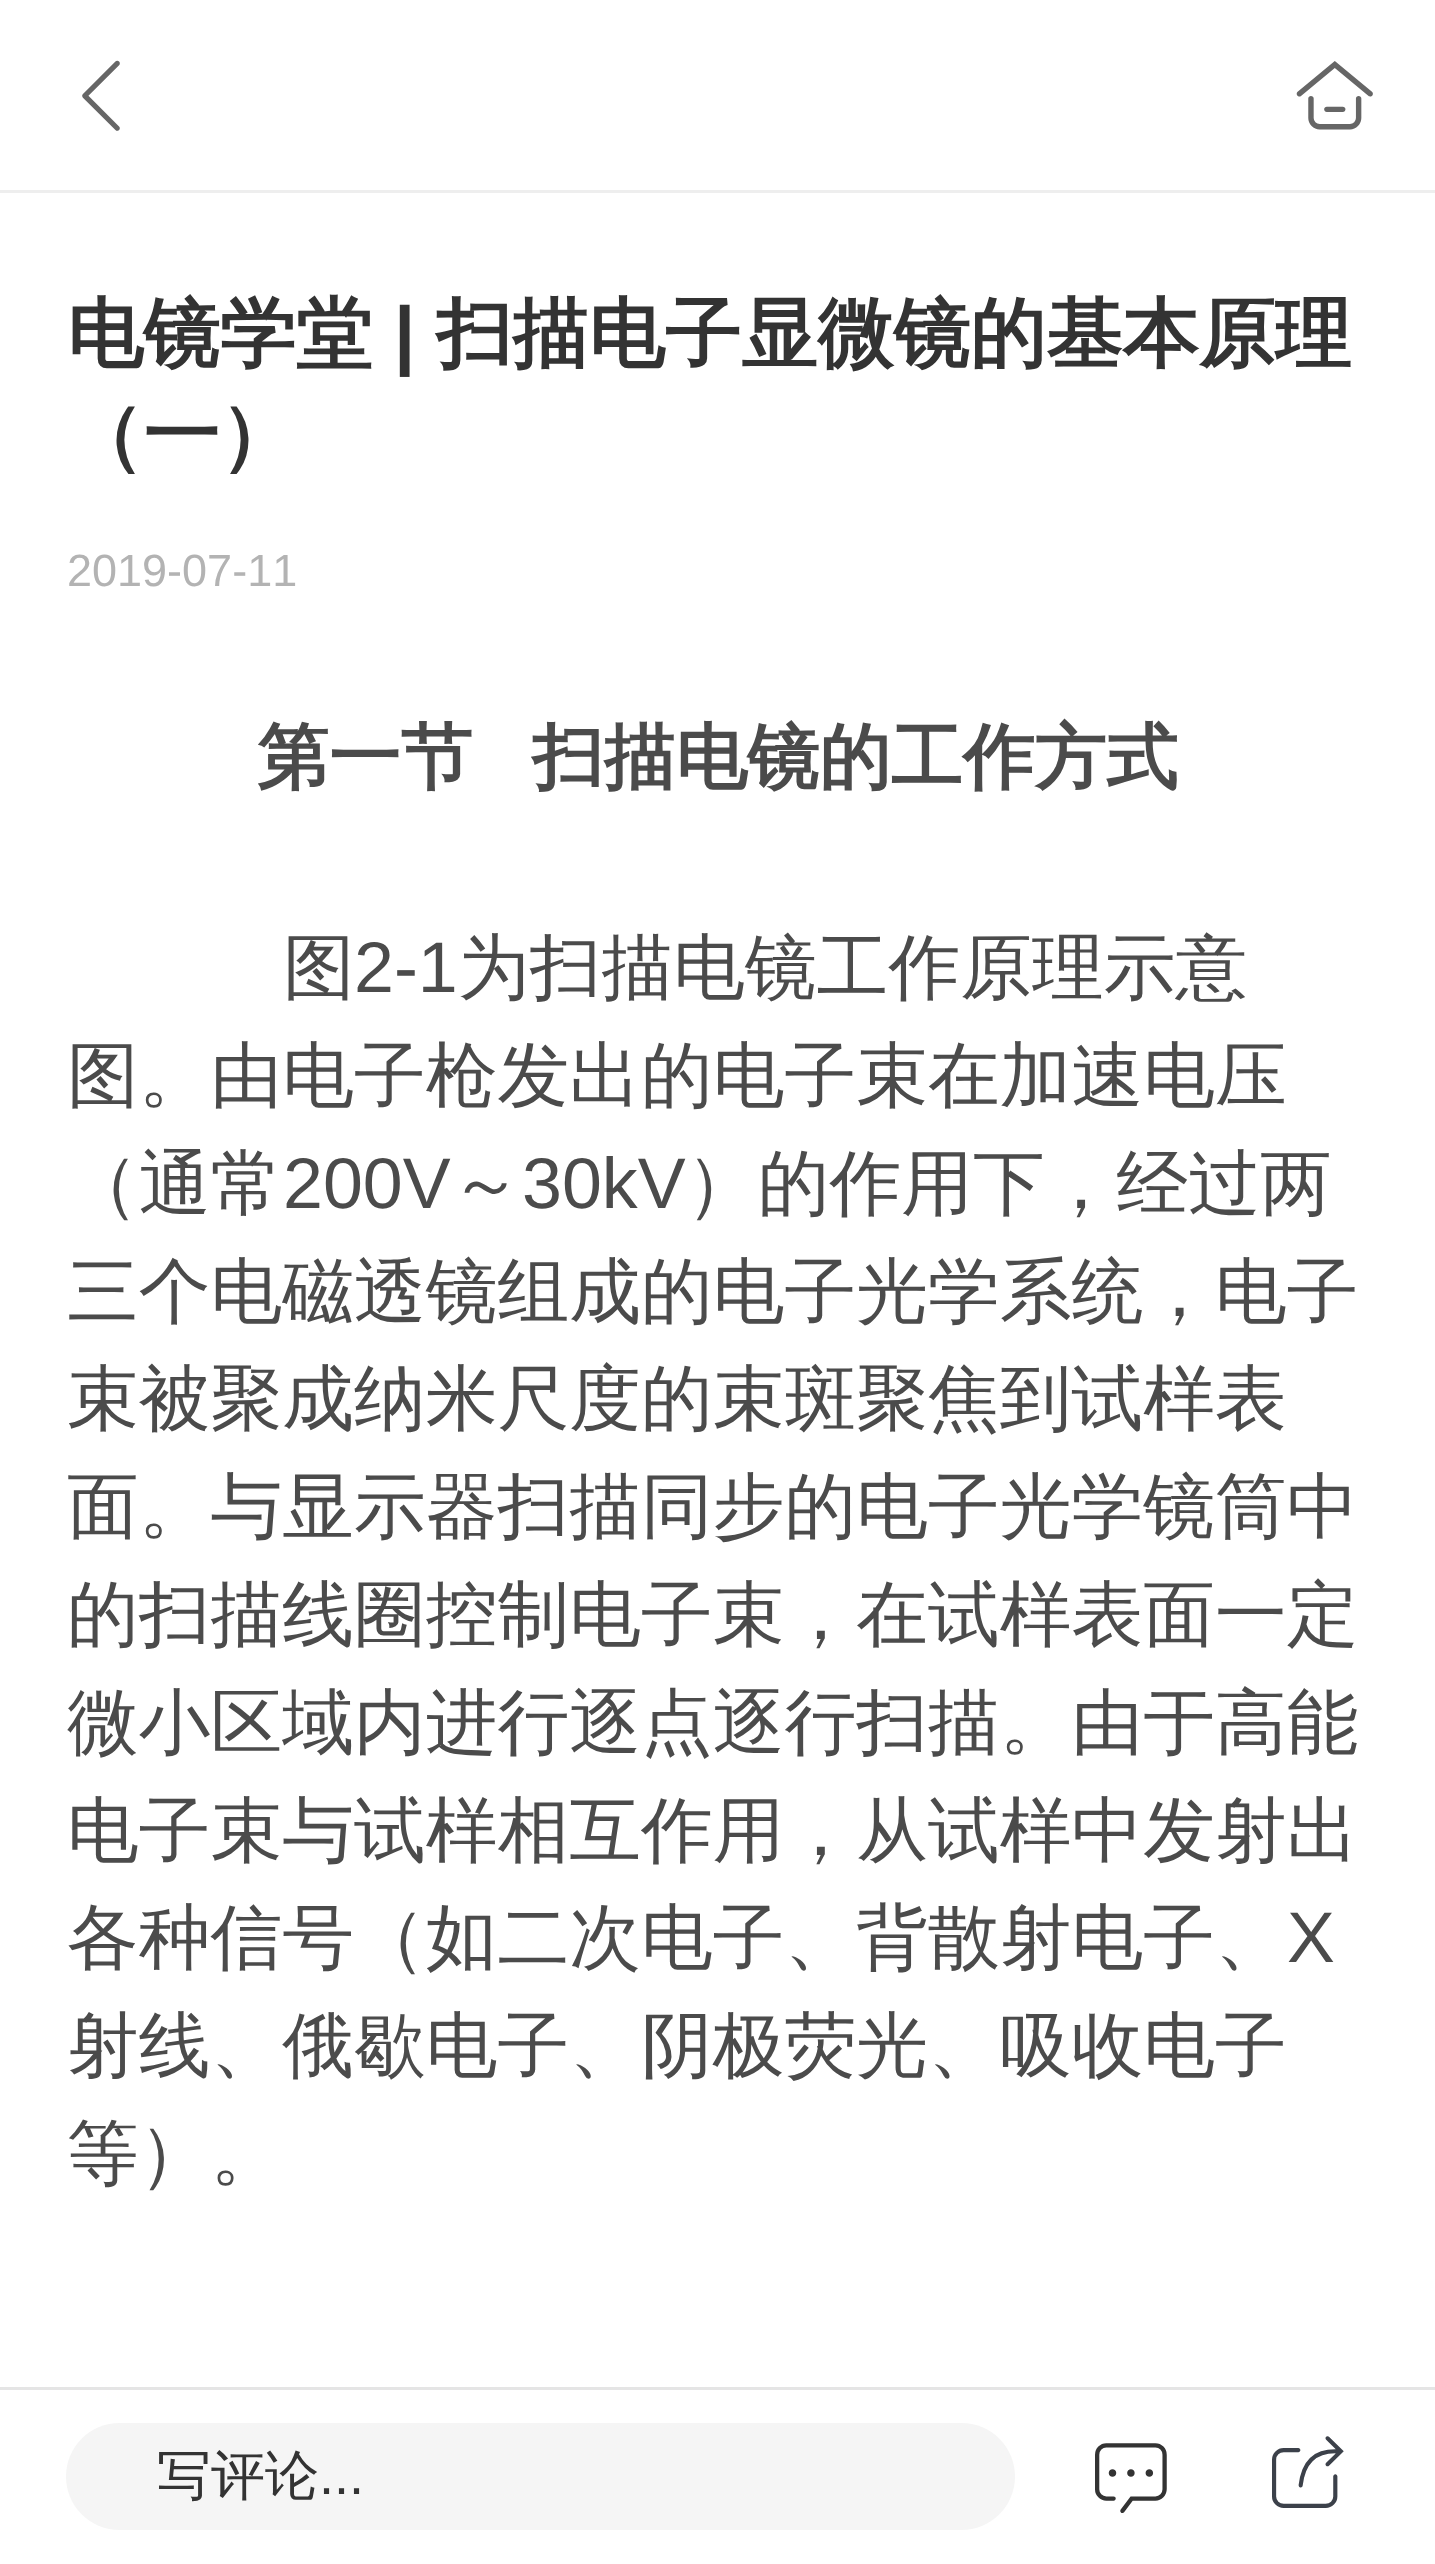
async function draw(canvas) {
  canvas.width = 1435;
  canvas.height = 2564;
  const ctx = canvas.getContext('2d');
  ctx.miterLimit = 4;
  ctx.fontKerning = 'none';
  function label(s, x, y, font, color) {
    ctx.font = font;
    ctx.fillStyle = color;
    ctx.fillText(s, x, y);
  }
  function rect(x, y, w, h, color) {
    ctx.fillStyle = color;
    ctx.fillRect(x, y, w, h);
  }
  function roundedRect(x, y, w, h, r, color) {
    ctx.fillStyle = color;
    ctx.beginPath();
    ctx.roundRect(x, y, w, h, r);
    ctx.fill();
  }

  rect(0, 0, 1435, 2564, '#fff');
  rect(0, 190, 1435, 3, '#eee');
  label('򰊔', 66, 125, '70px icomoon', '#666');
  label('򰌓', 1296, 127, '76.25px icomoon', '#666');
  label('电镜学堂', 67, 360, 'bold 76.25px WenQuanYi Zen Hei', '#333');
  label('|', 394, 360, 'bold 76.25px Liberation Sans', '#333');
  label('扫描电子显微镜的基本原理', 436, 360, 'bold 76.25px WenQuanYi Zen Hei', '#333');
  label('（一）', 67, 461, 'bold 76.25px WenQuanYi Zen Hei', '#333');
  label('2019-07-11', 67, 586, '45px Liberation Sans', '#b3b3b3');
  label('第一节', 257, 782, 'bold 71.75px WenQuanYi Zen Hei', '#4b4b4b');
  label('扫描电镜的工作方式', 532, 782, 'bold 71.75px WenQuanYi Zen Hei', '#4b4b4b');
  label('图', 283, 992, '500 71.75px WenQuanYi Zen Hei', '#4b4b4b');
  label('2-1', 354, 992, '71.75px Liberation Sans', '#4b4b4b');
  label('为扫描电镜工作原理示意', 458, 992, '500 71.75px WenQuanYi Zen Hei', '#4b4b4b');
  label('图。由电子枪发出的电子束在加速电压', 67, 1100, '500 71.75px WenQuanYi Zen Hei', '#4b4b4b');
  label('（通常', 67, 1208, '500 71.75px WenQuanYi Zen Hei', '#4b4b4b');
  label('200V', 283, 1208, '71.75px Liberation Sans', '#4b4b4b');
  label('～', 450, 1208, '500 71.75px WenQuanYi Zen Hei', '#4b4b4b');
  label('30kV', 522, 1208, '71.75px Liberation Sans', '#4b4b4b');
  label('）的作用下，经过两', 686, 1208, '500 71.75px WenQuanYi Zen Hei', '#4b4b4b');
  label('三个电磁透镜组成的电子光学系统，电子', 67, 1316, '500 71.75px WenQuanYi Zen Hei', '#4b4b4b');
  label('束被聚成纳米尺度的束斑聚焦到试样表', 67, 1423, '500 71.75px WenQuanYi Zen Hei', '#4b4b4b');
  label('面。与显示器扫描同步的电子光学镜筒中', 67, 1531, '500 71.75px WenQuanYi Zen Hei', '#4b4b4b');
  label('的扫描线圈控制电子束，在试样表面一定', 67, 1639, '500 71.75px WenQuanYi Zen Hei', '#4b4b4b');
  label('微小区域内进行逐点逐行扫描。由于高能', 67, 1747, '500 71.75px WenQuanYi Zen Hei', '#4b4b4b');
  label('电子束与试样相互作用，从试样中发射出', 67, 1855, '500 71.75px WenQuanYi Zen Hei', '#4b4b4b');
  label('各种信号（如二次电子、背散射电子、', 67, 1962, '500 71.75px WenQuanYi Zen Hei', '#4b4b4b');
  label('X', 1287, 1962, '71.75px Liberation Sans', '#4b4b4b');
  label('射线、俄歇电子、阴极荧光、吸收电子', 67, 2070, '500 71.75px WenQuanYi Zen Hei', '#4b4b4b');
  label('等）。', 67, 2178, '500 71.75px WenQuanYi Zen Hei', '#4b4b4b');
  rect(0, 2387, 1435, 3, '#e5e5e5');
  roundedRect(66, 2423, 949, 107, 53.5, '#f5f5f5');
  label('写评论', 157, 2494, '500 54px WenQuanYi Zen Hei', '#333');
  label('...', 319, 2494, '54px Liberation Sans', '#333');
  label('򰌇', 1095, 2508, '71.75px icomoon', '#333');
  label('򰌐', 1272, 2502, '71.75px icomoon', '#3c414a');
}

draw(document.querySelector('canvas'));
